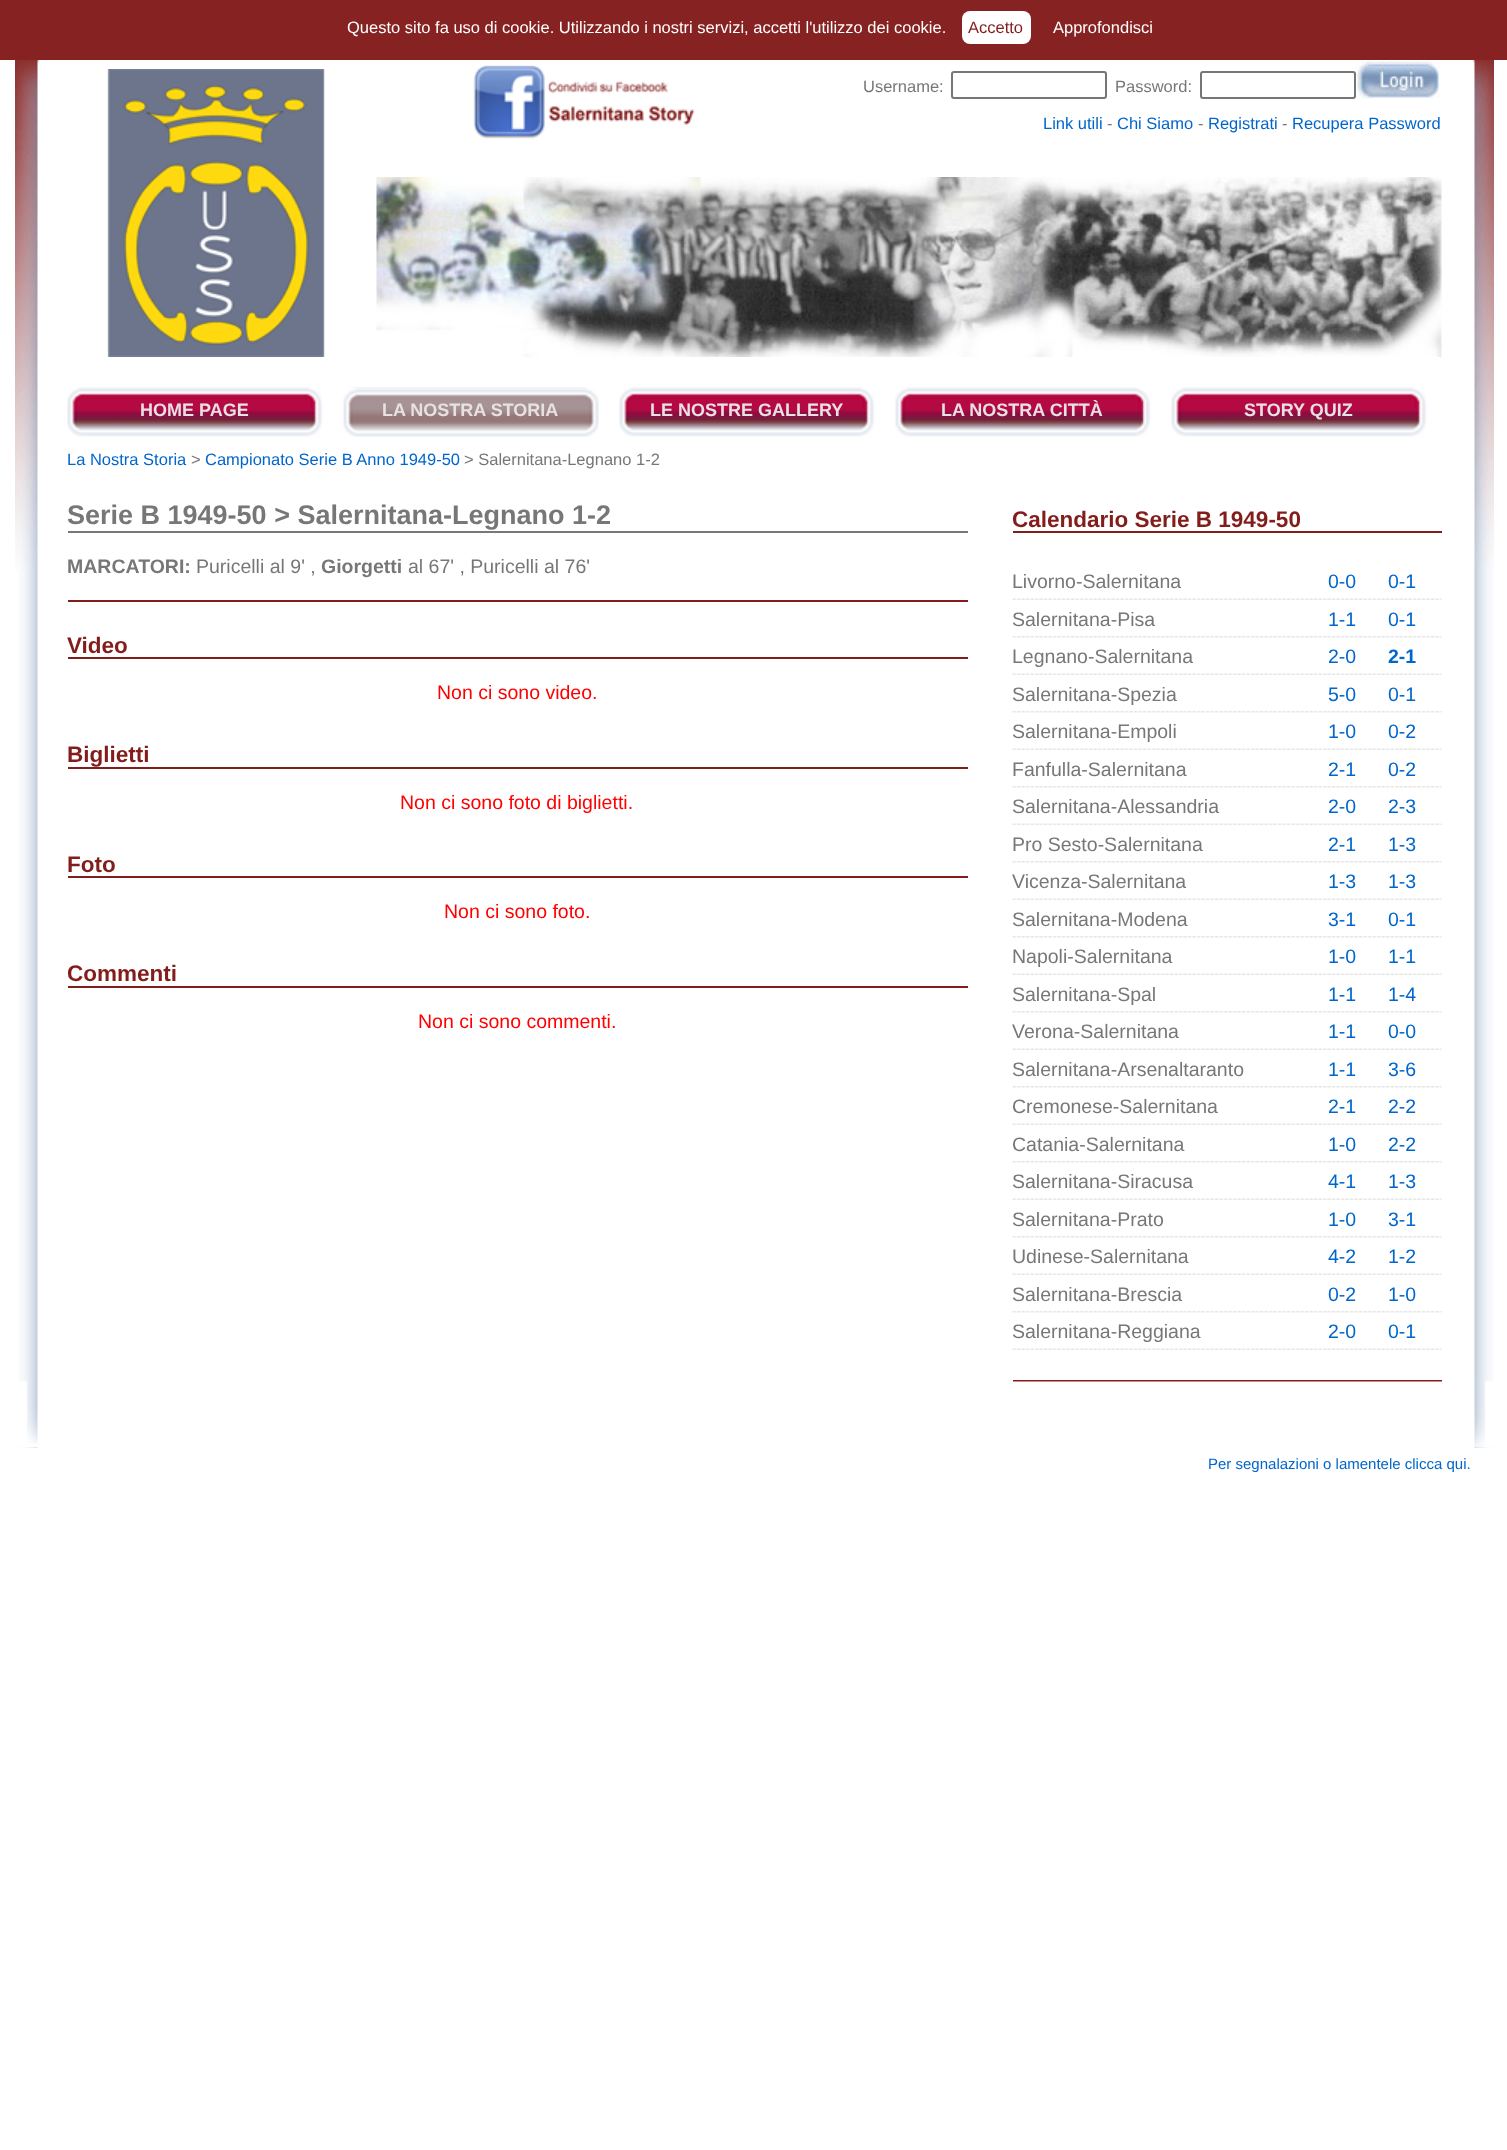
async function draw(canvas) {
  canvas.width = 1507;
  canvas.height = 2150;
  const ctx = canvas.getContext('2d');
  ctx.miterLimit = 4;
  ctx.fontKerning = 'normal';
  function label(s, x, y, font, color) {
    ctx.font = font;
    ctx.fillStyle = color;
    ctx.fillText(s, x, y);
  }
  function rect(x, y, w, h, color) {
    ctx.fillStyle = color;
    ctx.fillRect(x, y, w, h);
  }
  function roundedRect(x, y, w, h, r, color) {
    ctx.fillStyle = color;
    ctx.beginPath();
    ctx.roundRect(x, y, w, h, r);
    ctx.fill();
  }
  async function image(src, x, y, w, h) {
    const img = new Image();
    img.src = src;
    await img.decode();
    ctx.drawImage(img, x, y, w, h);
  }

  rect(0, 0, 1507, 2150, '#fff');
  rect(0, 0, 1507, 60, '#862221');
  label('Questo sito fa uso di cookie. Utilizzando i nostri servizi, accetti l\'utilizzo dei cookie.', 347, 33, '16.5px Liberation Sans', '#fff');
  roundedRect(962, 11, 69, 33, 8, '#fff');
  label('Accetto', 968, 33, '16.5px Liberation Sans', '#831d1c');
  label('Approfondisci', 1053, 33, '16.5px Liberation Sans', '#fff');
  await image('assets/img1.png', 18, 570, 1476, 878);
  await image('assets/img2.png', 15, 60, 1479, 510);
  await image('assets/img3.png', 107, 69, 218, 288);
  await image('assets/img4.png', 473, 65, 222, 74);
  label('Username:', 863, 92, '16.5px Liberation Sans', '#777');
  ctx.beginPath();
  ctx.roundRect(952, 72, 154, 26, 2);
  ctx.strokeStyle = '#767676';
  ctx.lineWidth = 2;
  ctx.stroke();
  label('Password:', 1115, 92, '16.5px Liberation Sans', '#777');
  ctx.beginPath();
  ctx.roundRect(1201, 72, 154, 26, 2);
  ctx.stroke();
  await image('assets/img5.png', 1356, 61, 84, 38);
  label('Link utili', 1043, 129, '16.5px Liberation Sans', '#06c');
  label('-', 1107, 129, '16.5px Liberation Sans', '#777');
  label('Chi Siamo', 1117, 129, '16.5px Liberation Sans', '#06c');
  label('-', 1198, 129, '16.5px Liberation Sans', '#777');
  label('Registrati', 1208, 129, '16.5px Liberation Sans', '#06c');
  label('-', 1282, 129, '16.5px Liberation Sans', '#777');
  label('Recupera Password', 1292, 129, '16.5px Liberation Sans', '#06c');
  await image('assets/img6.png', 376, 177, 1066, 180);
  await image('assets/img7.png', 67, 387, 256, 50);
  label('HOME PAGE', 140, 416, 'bold 18px Liberation Sans', '#e7e1e3');
  await image('assets/img8.png', 343, 387, 256, 50);
  label('LA NOSTRA STORIA', 382, 416, 'bold 18px Liberation Sans', '#e7e1e3');
  await image('assets/img9.png', 619, 387, 256, 50);
  label('LE NOSTRE GALLERY', 650, 416, 'bold 18px Liberation Sans', '#e7e1e3');
  await image('assets/img7.png', 895, 387, 256, 50);
  label('LA NOSTRA CITTÀ', 941, 416, 'bold 18px Liberation Sans', '#e7e1e3');
  await image('assets/img10.png', 1171, 387, 256, 50);
  label('STORY QUIZ', 1244, 416, 'bold 18px Liberation Sans', '#e7e1e3');
  label('La Nostra Storia', 67, 465, '16.5px Liberation Sans', '#06c');
  label('>', 191, 465, '16.5px Liberation Sans', '#777');
  label('Campionato Serie B Anno 1949-50', 205, 465, '16.5px Liberation Sans', '#06c');
  label('> Salernitana-Legnano 1-2', 464, 465, '16.5px Liberation Sans', '#777');
  rect(68, 531, 900, 2, '#777');
  label('Serie B 1949-50 > Salernitana-Legnano 1-2', 67, 524, 'bold 27px Liberation Sans', '#777');
  rect(68, 600, 900, 2, '#831d1c');
  label('MARCATORI:', 67, 573, 'bold 19.5px Liberation Sans', '#777');
  label('Puricelli al 9\' ,', 196, 573, '19.5px Liberation Sans', '#777');
  label('Giorgetti', 321, 573, 'bold 19.5px Liberation Sans', '#777');
  label('al 67\' , Puricelli al 76\'', 408, 573, '19.5px Liberation Sans', '#777');
  rect(68, 657, 900, 2, '#831d1c');
  label('Video', 67, 653, 'bold 22.5px Liberation Sans', '#831d1c');
  label('Non ci sono video.', 437, 699, '19.5px Liberation Sans', '#f00');
  rect(68, 767, 900, 2, '#831d1c');
  label('Biglietti', 67, 762, 'bold 22.5px Liberation Sans', '#831d1c');
  label('Non ci sono foto di biglietti.', 400, 809, '19.5px Liberation Sans', '#f00');
  rect(68, 876, 900, 2, '#831d1c');
  label('Foto', 67, 872, 'bold 22.5px Liberation Sans', '#831d1c');
  label('Non ci sono foto.', 444, 918, '19.5px Liberation Sans', '#f00');
  rect(68, 986, 900, 2, '#831d1c');
  label('Commenti', 67, 981, 'bold 22.5px Liberation Sans', '#831d1c');
  label('Non ci sono commenti.', 418, 1028, '19.5px Liberation Sans', '#f00');
  rect(1013, 531, 429, 2, '#831d1c');
  label('Calendario Serie B 1949-50', 1012, 527, 'bold 22.5px Liberation Sans', '#831d1c');
  rect(1013, 1380, 429, 2, '#831d1c');
  await image('assets/img11.png', 1012, 598, 430, 2);
  label('Livorno-Salernitana', 1012, 588, '19.5px Liberation Sans', '#777');
  label('0-0', 1328, 588, '19.5px Liberation Sans', '#06c');
  label('0-1', 1388, 588, '19.5px Liberation Sans', '#06c');
  await image('assets/img12.png', 1012, 636, 430, 2);
  label('Salernitana-Pisa', 1012, 626, '19.5px Liberation Sans', '#777');
  label('1-1', 1328, 626, '19.5px Liberation Sans', '#06c');
  label('0-1', 1388, 626, '19.5px Liberation Sans', '#06c');
  await image('assets/img11.png', 1012, 673, 430, 2);
  label('Legnano-Salernitana', 1012, 663, '19.5px Liberation Sans', '#777');
  label('2-0', 1328, 663, '19.5px Liberation Sans', '#06c');
  label('2-1', 1388, 663, 'bold 19.5px Liberation Sans', '#06c');
  await image('assets/img12.png', 1012, 711, 430, 2);
  label('Salernitana-Spezia', 1012, 701, '19.5px Liberation Sans', '#777');
  label('5-0', 1328, 701, '19.5px Liberation Sans', '#06c');
  label('0-1', 1388, 701, '19.5px Liberation Sans', '#06c');
  await image('assets/img11.png', 1012, 748, 430, 2);
  label('Salernitana-Empoli', 1012, 738, '19.5px Liberation Sans', '#777');
  label('1-0', 1328, 738, '19.5px Liberation Sans', '#06c');
  label('0-2', 1388, 738, '19.5px Liberation Sans', '#06c');
  await image('assets/img12.png', 1012, 786, 430, 2);
  label('Fanfulla-Salernitana', 1012, 776, '19.5px Liberation Sans', '#777');
  label('2-1', 1328, 776, '19.5px Liberation Sans', '#06c');
  label('0-2', 1388, 776, '19.5px Liberation Sans', '#06c');
  await image('assets/img11.png', 1012, 823, 430, 2);
  label('Salernitana-Alessandria', 1012, 813, '19.5px Liberation Sans', '#777');
  label('2-0', 1328, 813, '19.5px Liberation Sans', '#06c');
  label('2-3', 1388, 813, '19.5px Liberation Sans', '#06c');
  await image('assets/img12.png', 1012, 861, 430, 2);
  label('Pro Sesto-Salernitana', 1012, 851, '19.5px Liberation Sans', '#777');
  label('2-1', 1328, 851, '19.5px Liberation Sans', '#06c');
  label('1-3', 1388, 851, '19.5px Liberation Sans', '#06c');
  await image('assets/img11.png', 1012, 898, 430, 2);
  label('Vicenza-Salernitana', 1012, 888, '19.5px Liberation Sans', '#777');
  label('1-3', 1328, 888, '19.5px Liberation Sans', '#06c');
  label('1-3', 1388, 888, '19.5px Liberation Sans', '#06c');
  await image('assets/img12.png', 1012, 936, 430, 2);
  label('Salernitana-Modena', 1012, 926, '19.5px Liberation Sans', '#777');
  label('3-1', 1328, 926, '19.5px Liberation Sans', '#06c');
  label('0-1', 1388, 926, '19.5px Liberation Sans', '#06c');
  await image('assets/img11.png', 1012, 973, 430, 2);
  label('Napoli-Salernitana', 1012, 963, '19.5px Liberation Sans', '#777');
  label('1-0', 1328, 963, '19.5px Liberation Sans', '#06c');
  label('1-1', 1388, 963, '19.5px Liberation Sans', '#06c');
  await image('assets/img12.png', 1012, 1011, 430, 2);
  label('Salernitana-Spal', 1012, 1001, '19.5px Liberation Sans', '#777');
  label('1-1', 1328, 1001, '19.5px Liberation Sans', '#06c');
  label('1-4', 1388, 1001, '19.5px Liberation Sans', '#06c');
  await image('assets/img11.png', 1012, 1048, 430, 2);
  label('Verona-Salernitana', 1012, 1038, '19.5px Liberation Sans', '#777');
  label('1-1', 1328, 1038, '19.5px Liberation Sans', '#06c');
  label('0-0', 1388, 1038, '19.5px Liberation Sans', '#06c');
  await image('assets/img12.png', 1012, 1086, 430, 2);
  label('Salernitana-Arsenaltaranto', 1012, 1076, '19.5px Liberation Sans', '#777');
  label('1-1', 1328, 1076, '19.5px Liberation Sans', '#06c');
  label('3-6', 1388, 1076, '19.5px Liberation Sans', '#06c');
  await image('assets/img11.png', 1012, 1123, 430, 2);
  label('Cremonese-Salernitana', 1012, 1113, '19.5px Liberation Sans', '#777');
  label('2-1', 1328, 1113, '19.5px Liberation Sans', '#06c');
  label('2-2', 1388, 1113, '19.5px Liberation Sans', '#06c');
  await image('assets/img12.png', 1012, 1161, 430, 2);
  label('Catania-Salernitana', 1012, 1151, '19.5px Liberation Sans', '#777');
  label('1-0', 1328, 1151, '19.5px Liberation Sans', '#06c');
  label('2-2', 1388, 1151, '19.5px Liberation Sans', '#06c');
  await image('assets/img11.png', 1012, 1198, 430, 2);
  label('Salernitana-Siracusa', 1012, 1188, '19.5px Liberation Sans', '#777');
  label('4-1', 1328, 1188, '19.5px Liberation Sans', '#06c');
  label('1-3', 1388, 1188, '19.5px Liberation Sans', '#06c');
  await image('assets/img12.png', 1012, 1236, 430, 2);
  label('Salernitana-Prato', 1012, 1226, '19.5px Liberation Sans', '#777');
  label('1-0', 1328, 1226, '19.5px Liberation Sans', '#06c');
  label('3-1', 1388, 1226, '19.5px Liberation Sans', '#06c');
  await image('assets/img11.png', 1012, 1273, 430, 2);
  label('Udinese-Salernitana', 1012, 1263, '19.5px Liberation Sans', '#777');
  label('4-2', 1328, 1263, '19.5px Liberation Sans', '#06c');
  label('1-2', 1388, 1263, '19.5px Liberation Sans', '#06c');
  await image('assets/img12.png', 1012, 1311, 430, 2);
  label('Salernitana-Brescia', 1012, 1301, '19.5px Liberation Sans', '#777');
  label('0-2', 1328, 1301, '19.5px Liberation Sans', '#06c');
  label('1-0', 1388, 1301, '19.5px Liberation Sans', '#06c');
  await image('assets/img11.png', 1012, 1348, 430, 2);
  label('Salernitana-Reggiana', 1012, 1338, '19.5px Liberation Sans', '#777');
  label('2-0', 1328, 1338, '19.5px Liberation Sans', '#06c');
  label('0-1', 1388, 1338, '19.5px Liberation Sans', '#06c');
  await image('assets/img13.png', 18, 1381, 1476, 67);
  label('Per segnalazioni o lamentele clicca qui.', 1208, 1469, '15px Liberation Sans', '#06c');
}

draw(document.querySelector('canvas'));
